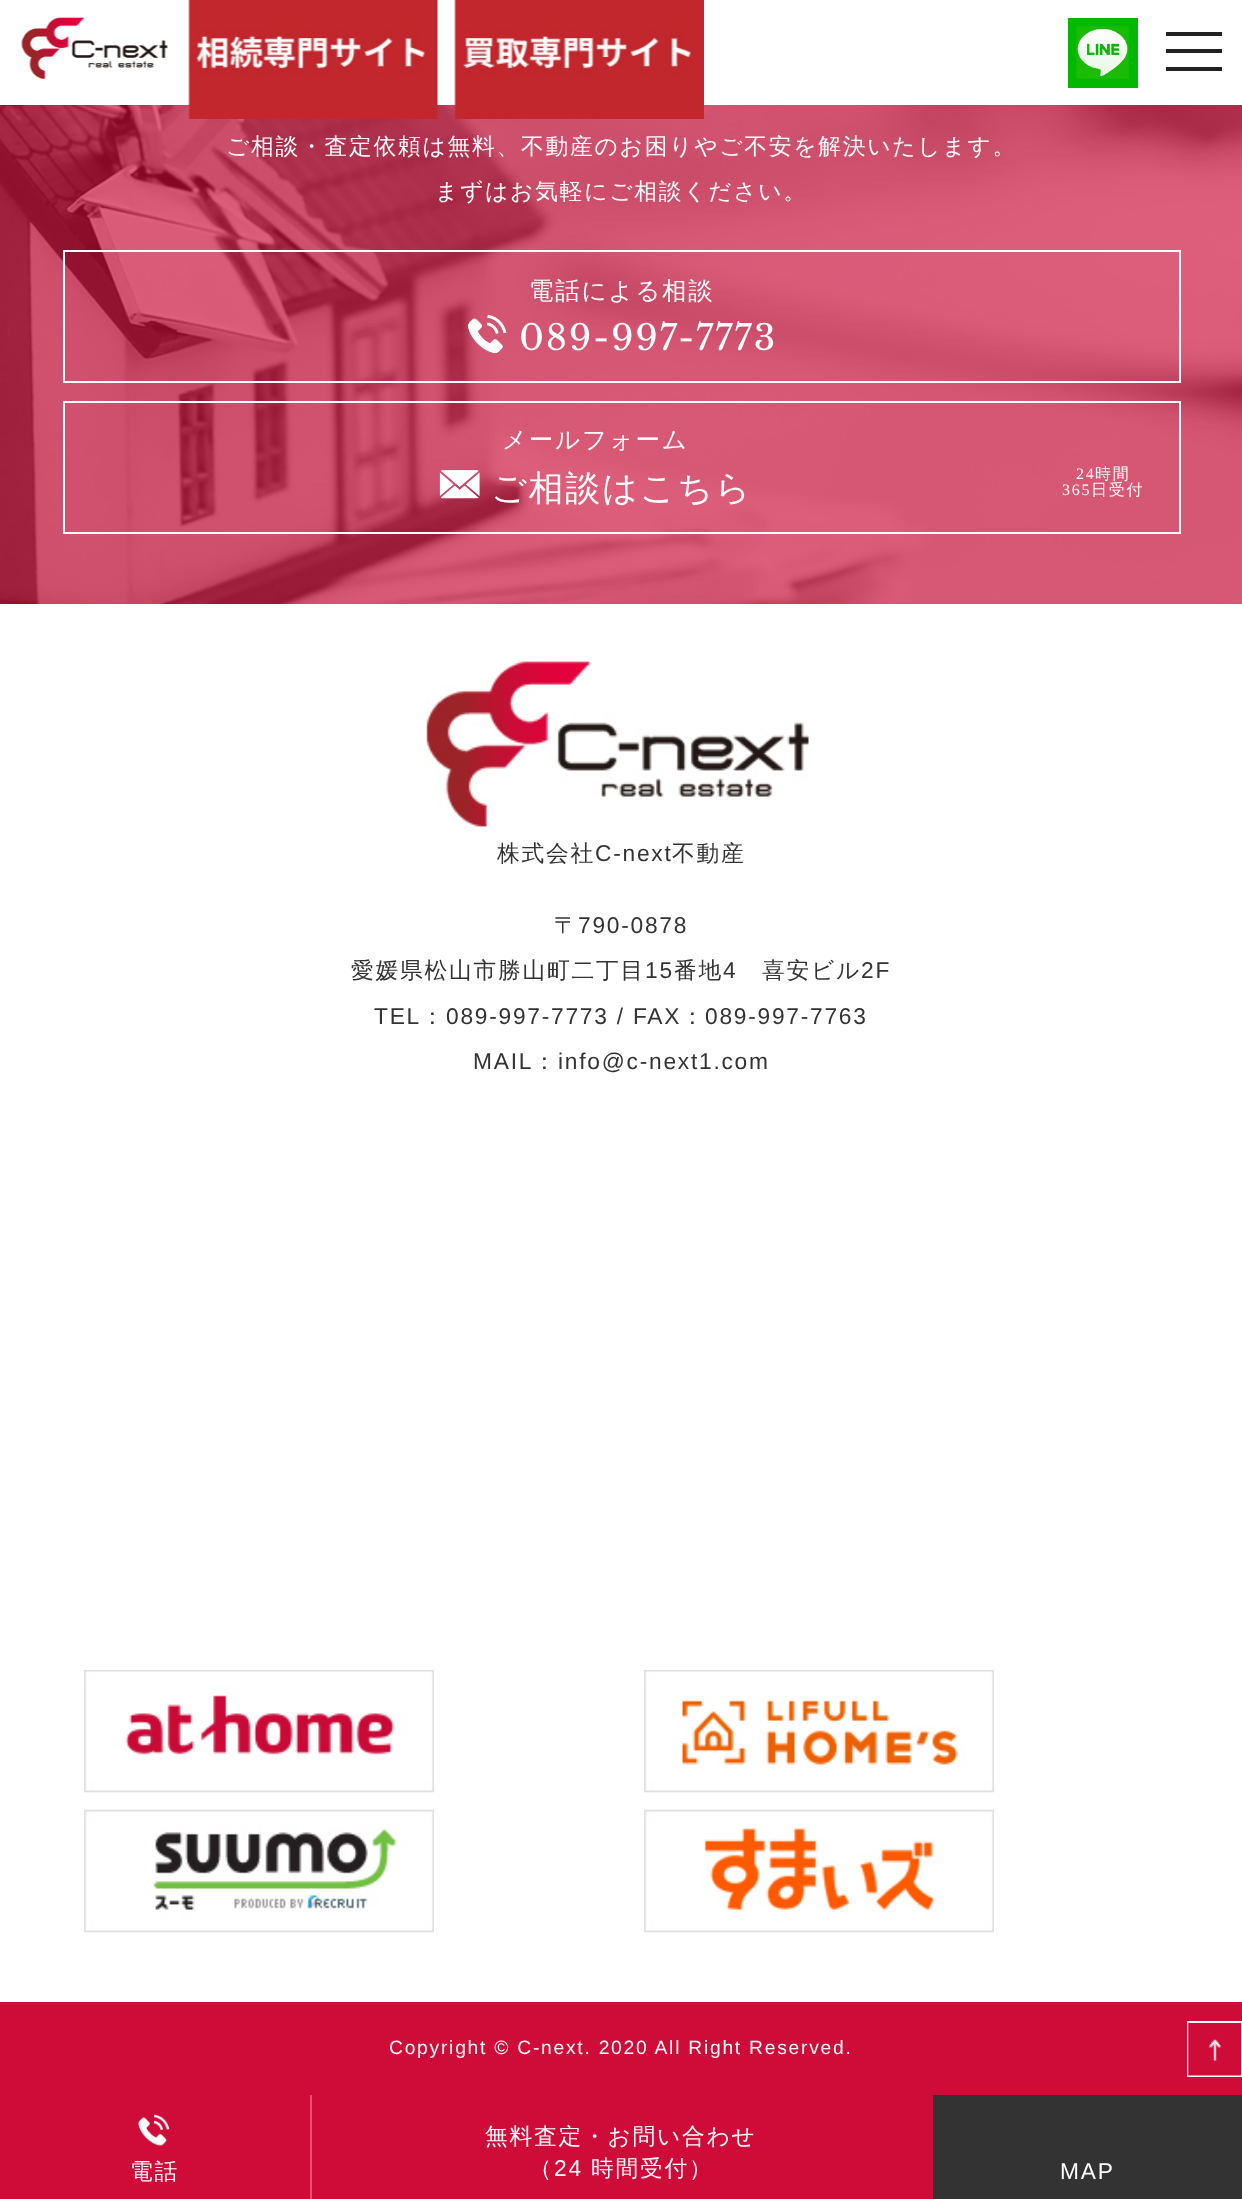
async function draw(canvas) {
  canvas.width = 1242;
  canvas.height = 2199;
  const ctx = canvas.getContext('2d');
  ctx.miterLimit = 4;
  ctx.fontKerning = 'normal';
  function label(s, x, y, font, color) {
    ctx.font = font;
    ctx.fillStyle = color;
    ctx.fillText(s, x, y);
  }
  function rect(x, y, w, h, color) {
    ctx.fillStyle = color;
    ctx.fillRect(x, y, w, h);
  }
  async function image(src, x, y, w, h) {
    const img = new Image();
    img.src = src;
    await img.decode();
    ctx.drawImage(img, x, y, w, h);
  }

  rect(0, 0, 1242, 2199, '#fff');
  await image('assets/img1.png', 21, 17, 147, 62);
  await image('assets/img5.png', 0, 105, 1242, 499);
  await image('assets/img2.png', 188, 0, 250, 119);
  await image('assets/img3.png', 454, 0, 250, 119);
  rect(1068, 18, 70, 70, '#02b802');
  await image('assets/img4.png', 1076, 26, 53, 53);
  rect(1166, 49, 56, 4, '#222');
  rect(1166, 32, 56, 4, '#222');
  rect(1166, 67, 56, 4, '#222');
  ctx.letterSpacing = '1.75px';
  label('ご相談・査定依頼は無料、不動産のお困りやご不安を解決いたします。', 226, 154, '500 22.75px WenQuanYi Zen Hei', '#fff');
  label('まずはお気軽にご相談ください。', 435, 199, '500 22.75px WenQuanYi Zen Hei', '#fff');
  ctx.strokeStyle = '#fff';
  ctx.lineWidth = 2;
  ctx.strokeRect(64, 251, 1116, 131);
  label('電話による相談', 529, 299, '500 24.5px WenQuanYi Zen Hei', '#fff');
  await image('assets/img6.png', 468, 314, 39, 40);
  label('089-997-7773', 519, 350, '35px Libre Baskerville', '#fff');
  ctx.strokeRect(64, 402, 1116, 131);
  label('メールフォーム', 502, 448, '500 24.5px WenQuanYi Zen Hei', '#fff');
  await image('assets/img7.png', 439, 470, 41, 29);
  label('ご相談はこちら', 491, 500, '500 35px WenQuanYi Zen Hei', '#fff');
  label('24', 1076, 479, '16px Liberation Serif', '#fff');
  label('時間', 1095, 479, '500 16px WenQuanYi Zen Hei', '#fff');
  label('365', 1062, 495, '16px Liberation Serif', '#fff');
  label('日受付', 1091, 495, '500 16px WenQuanYi Zen Hei', '#fff');
  await image('assets/img8.png', 426, 661, 383, 166);
  label('株式会社', 497, 861, '500 22.75px WenQuanYi Zen Hei', '#333');
  label('C-next', 595, 861, '22.75px Liberation Sans', '#333');
  label('不動産', 672, 861, '500 22.75px WenQuanYi Zen Hei', '#333');
  label('〒', 554, 933, '500 22.75px WenQuanYi Zen Hei', '#333');
  label('790-0878', 578, 933, '22.75px Liberation Sans', '#333');
  label('愛媛県松山市勝山町二丁目', 351, 978, '500 22.75px WenQuanYi Zen Hei', '#333');
  label('15', 645, 978, '22.75px Liberation Sans', '#333');
  label('番地', 674, 978, '500 22.75px WenQuanYi Zen Hei', '#333');
  label('4', 723, 978, '22.75px Liberation Sans', '#333');
  label('喜安ビル', 762, 978, '500 22.75px WenQuanYi Zen Hei', '#333');
  label('2F', 861, 978, '22.75px Liberation Sans', '#333');
  label('TEL', 374, 1024, '22.75px Liberation Sans', '#333');
  label('：', 421, 1024, '500 22.75px WenQuanYi Zen Hei', '#333');
  label('089-997-7773 / FAX', 446, 1024, '22.75px Liberation Sans', '#333');
  label('：', 681, 1024, '500 22.75px WenQuanYi Zen Hei', '#333');
  label('089-997-7763', 705, 1024, '22.75px Liberation Sans', '#333');
  label('MAIL', 473, 1069, '22.75px Liberation Sans', '#333');
  label('：', 533, 1069, '500 22.75px WenQuanYi Zen Hei', '#333');
  label('info@c-next1.com', 558, 1069, '22.75px Liberation Sans', '#333');
  await image('assets/img9.png', 84, 1670, 350, 123);
  await image('assets/img10.png', 644, 1670, 350, 123);
  await image('assets/img11.png', 84, 1809, 350, 124);
  await image('assets/img12.png', 644, 1809, 350, 124);
  rect(0, 2002, 1242, 197, '#cf0b38');
  label('Copyright © C-next. 2020 All Right Reserved.', 389, 2054, '19.25px Liberation Sans', '#fff');
  ctx.strokeRect(1188, 2022, 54, 54);
  await image('assets/img13.png', 1188, 2023, 53, 53);
  await image('assets/img14.png', 138, 2114, 32, 32);
  rect(310, 2095, 2, 104, '#dd5474');
  label('電話', 130, 2179, '500 22.75px WenQuanYi Zen Hei', '#fff');
  label('無料査定・お問い合わせ', 485, 2144, '500 22.75px WenQuanYi Zen Hei', '#fff');
  label('（', 529, 2176, '500 22.75px WenQuanYi Zen Hei', '#fff');
  label('24', 554, 2176, '22.75px Liberation Sans', '#fff');
  label('時間受付）', 591, 2176, '500 22.75px WenQuanYi Zen Hei', '#fff');
  rect(933, 2095, 309, 104, '#333');
  label('MAP', 1060, 2179, '22.75px Liberation Sans', '#fff');
}

draw(document.querySelector('canvas'));
